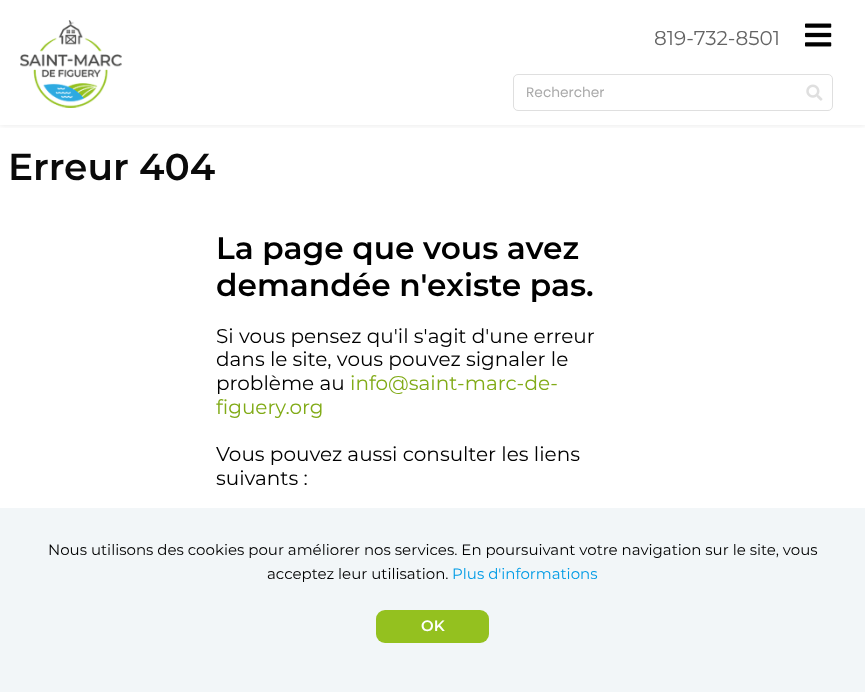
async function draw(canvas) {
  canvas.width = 865;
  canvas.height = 692;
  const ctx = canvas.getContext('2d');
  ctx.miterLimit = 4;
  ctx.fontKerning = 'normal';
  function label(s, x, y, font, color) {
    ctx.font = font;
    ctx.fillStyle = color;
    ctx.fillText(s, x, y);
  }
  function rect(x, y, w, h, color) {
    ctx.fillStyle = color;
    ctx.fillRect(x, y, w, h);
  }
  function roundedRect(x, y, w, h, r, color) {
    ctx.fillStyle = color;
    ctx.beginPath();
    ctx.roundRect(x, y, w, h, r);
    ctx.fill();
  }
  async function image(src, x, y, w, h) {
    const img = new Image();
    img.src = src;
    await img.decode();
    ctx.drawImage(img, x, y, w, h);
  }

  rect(0, 0, 865, 692, '#fff');
  ctx.save();
  ctx.beginPath();
  ctx.rect(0, 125, 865, 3);
  ctx.clip();
  ctx.fillStyle = '#0000001a';
  ctx.filter = 'blur(3px)';
  ctx.beginPath();
  ctx.rect(0, 0, 865, 125);
  ctx.fill();
  ctx.filter = 'none';
  ctx.restore();
  await image('assets/img1.png', 20, 20, 102, 88);
  label('819-732-8501', 654, 45, '20px Montserrat', '#646464');
  await image('assets/img2.png', 805, 23, 27, 24);
  ctx.beginPath();
  ctx.roundRect(513.5, 74.5, 319, 36, 4.5);
  ctx.strokeStyle = '#dfdfdf';
  ctx.stroke();
  label('Rechercher', 526, 97, '13.75px Poppins', '#ababab');
  await image('assets/img3.png', 806, 84, 17, 17);
  label('Erreur 404', 8, 180, '600 37.5px Montserrat', '#0a0a0a');
  label('La page que vous avez', 216, 259, '600 31.25px Montserrat', '#000');
  label('demandée n\'existe pas.', 216, 296, '600 31.25px Montserrat', '#000');
  label('Si vous pensez qu\'il s\'agit d\'une erreur', 216, 343, '20px Montserrat', '#000');
  label('dans le site, vous pouvez signaler le', 216, 366, '20px Montserrat', '#000');
  label('problème au', 216, 390, '20px Montserrat', '#000');
  label('info@saint-marc-de-', 350, 390, '20px Montserrat', '#81ab17');
  label('figuery.org', 216, 414, '20px Montserrat', '#81ab17');
  label('Vous pouvez aussi consulter les liens', 216, 461, '20px Montserrat', '#000');
  label('suivants :', 216, 485, '20px Montserrat', '#000');
  rect(0, 508, 865, 184, '#f2f6f8');
  label('Nous utilisons des cookies pour améliorer nos services. En poursuivant votre navigation sur le site, vous', 48, 555, '15px Montserrat', '#000');
  label('acceptez leur utilisation.', 267, 579, '15px Montserrat', '#000');
  label('Plus d\'informations', 452, 579, '15px Montserrat', '#009be5');
  roundedRect(376, 610, 113, 33, 9, '#94c11f');
  label('OK', 421, 631, '600 15px Montserrat', '#fff');
}

draw(document.querySelector('canvas'));
